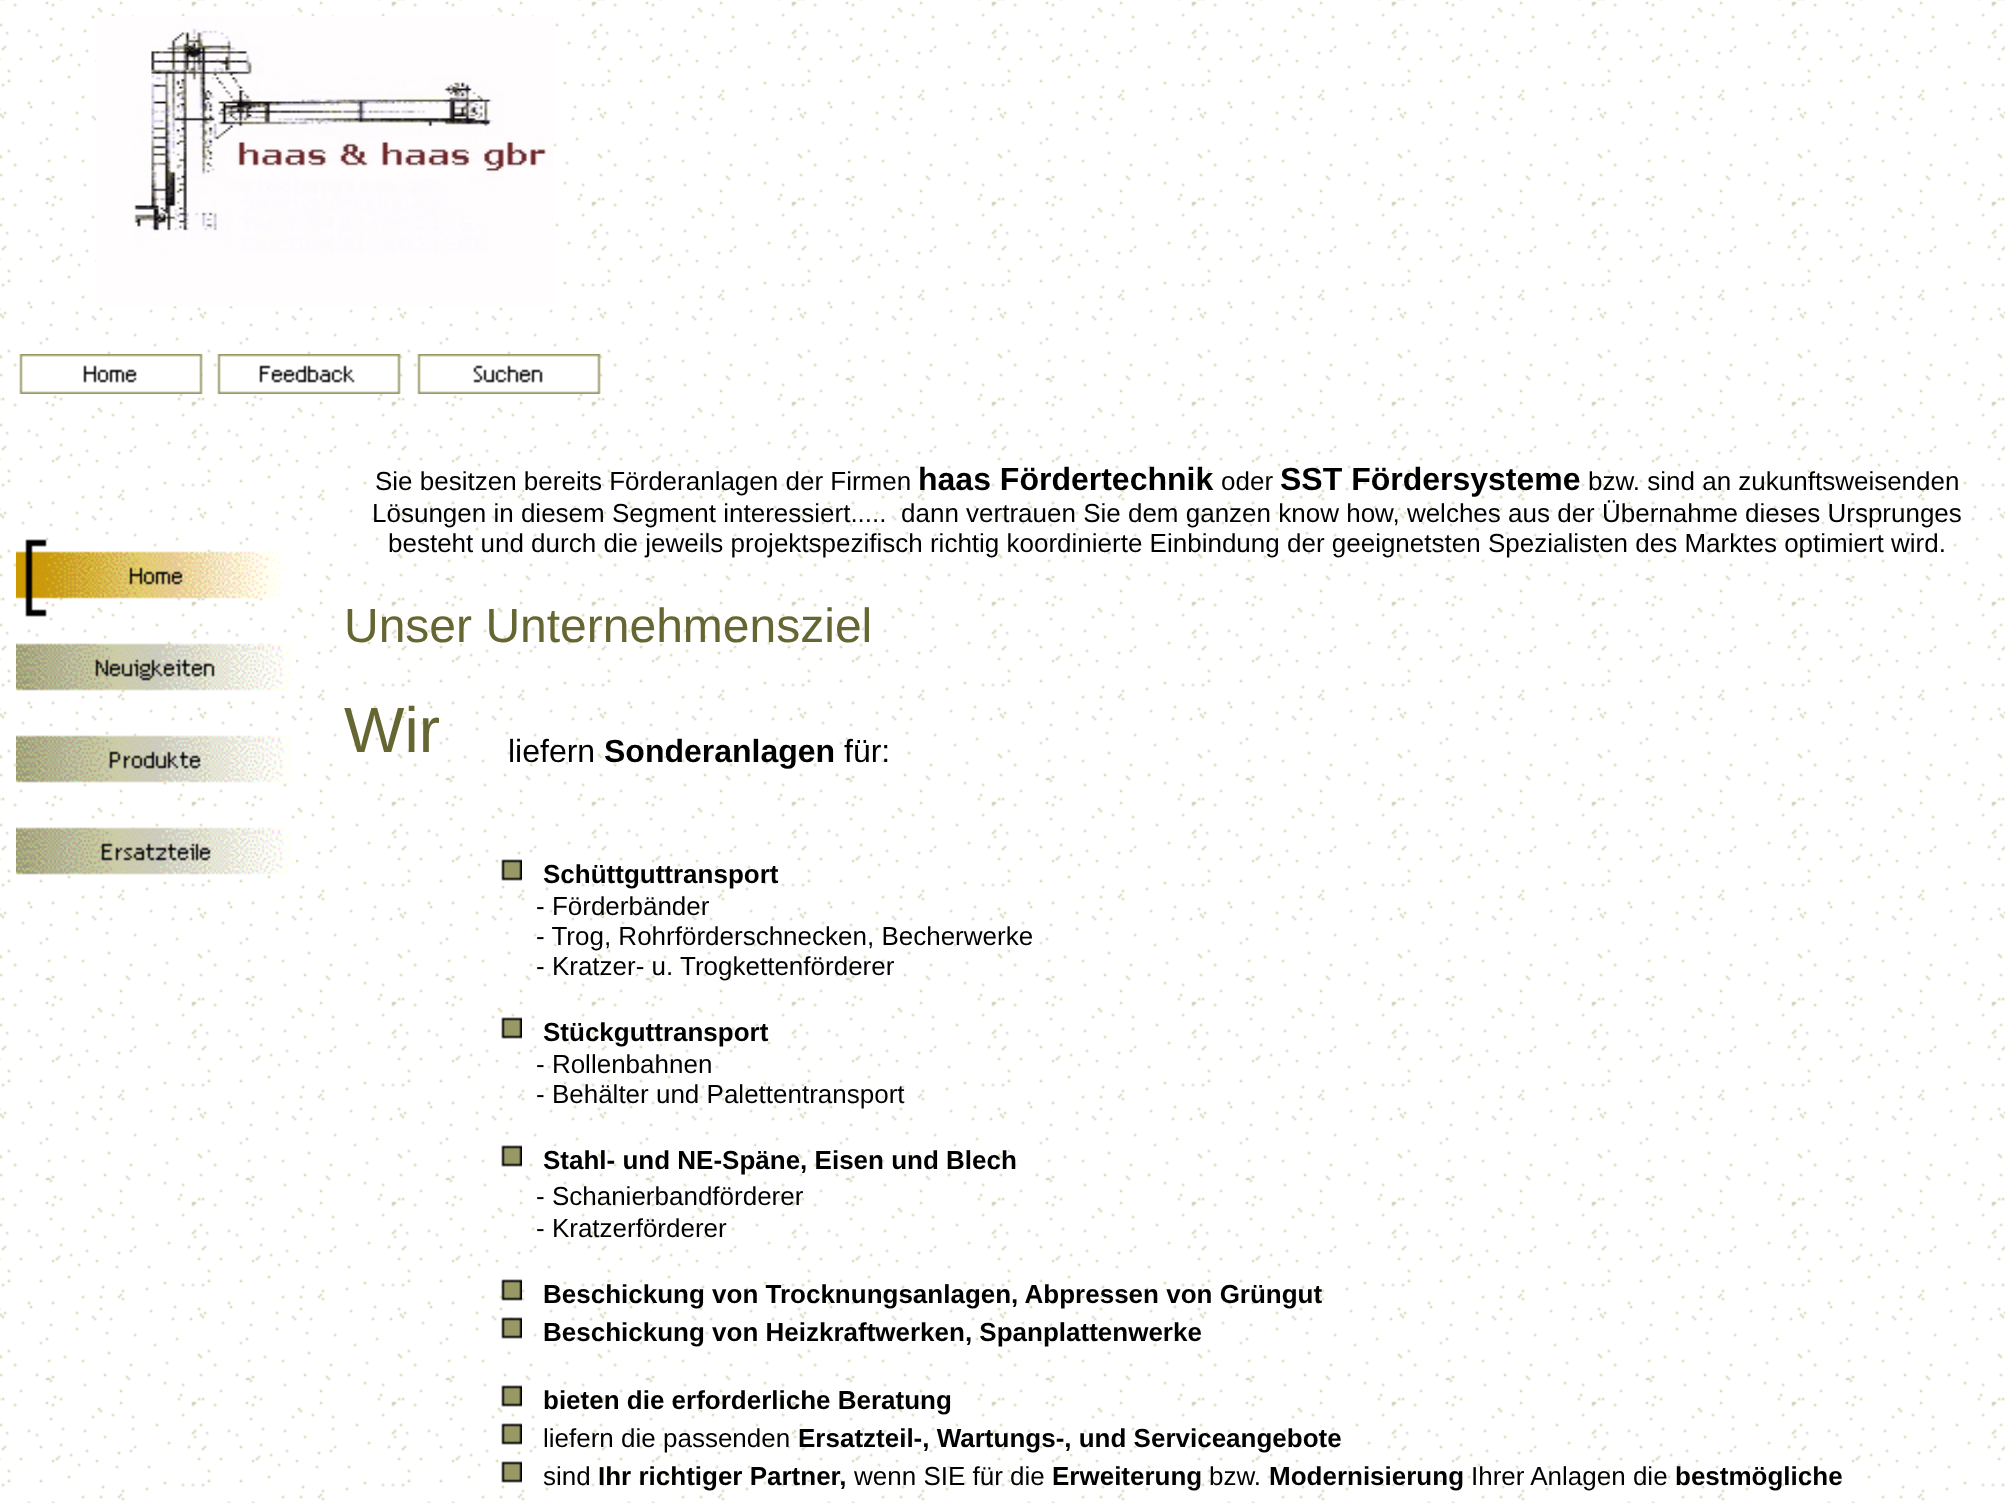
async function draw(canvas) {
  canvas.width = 2005;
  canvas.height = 1503;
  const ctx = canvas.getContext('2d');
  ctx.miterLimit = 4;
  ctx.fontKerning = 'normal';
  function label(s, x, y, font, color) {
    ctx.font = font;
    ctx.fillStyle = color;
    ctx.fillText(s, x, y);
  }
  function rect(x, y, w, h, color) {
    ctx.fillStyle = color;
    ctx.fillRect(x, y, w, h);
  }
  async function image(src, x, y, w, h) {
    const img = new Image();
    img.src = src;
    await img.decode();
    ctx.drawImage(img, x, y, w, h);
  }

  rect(0, 0, 2005, 1503, '#fff');
  await image('assets/img1.png', 0, 0, 2005, 1503);
  await image('assets/img2.png', 96, 16, 458, 290);
  await image('assets/img3.png', 19, 354, 184, 40);
  await image('assets/img4.png', 217, 354, 184, 40);
  await image('assets/img5.png', 417, 354, 184, 40);
  await image('assets/img6.png', 16, 539, 271, 78);
  await image('assets/img7.png', 16, 643, 280, 48);
  await image('assets/img8.png', 16, 735, 279, 48);
  await image('assets/img9.png', 16, 827, 280, 48);
  label('Sie besitzen bereits Förderanlagen der Firmen', 375, 490, '26px Liberation Sans', '#000');
  label('haas Fördertechnik', 918, 490, 'bold 32px Liberation Sans', '#000');
  label('oder', 1221, 490, '26px Liberation Sans', '#000');
  label('SST Fördersysteme', 1280, 490, 'bold 32px Liberation Sans', '#000');
  label('bzw. sind an zukunftsweisenden', 1588, 490, '26px Liberation Sans', '#000');
  label('Lösungen in diesem Segment interessiert.....', 372, 522, '26px Liberation Sans', '#000');
  label('dann vertrauen Sie dem ganzen know how, welches aus der Übernahme dieses Ursprunges', 901, 522, '26px Liberation Sans', '#000');
  label('besteht und durch die jeweils projektspezifisch richtig koordinierte Einbindung der geeignetsten Spezialisten des Marktes optimiert wird.', 388, 552, '26px Liberation Sans', '#000');
  label('Unser Unternehmensziel', 344, 642, '48px Liberation Sans', '#663');
  label('Wir', 344, 752, '64px Liberation Sans', '#663');
  label('liefern', 508, 762, '32px Liberation Sans', '#000');
  label('Sonderanlagen', 604, 762, 'bold 32px Liberation Sans', '#000');
  label('für:', 844, 762, '32px Liberation Sans', '#000');
  await image('assets/img10.png', 501, 859, 21, 22);
  label('Schüttguttransport', 543, 883, 'bold 26px Liberation Sans', '#000');
  label('- Förderbänder', 536, 915, '26px Liberation Sans', '#000');
  label('- Trog, Rohrförderschnecken, Becherwerke', 536, 945, '26px Liberation Sans', '#000');
  label('- Kratzer- u. Trogkettenförderer', 536, 975, '26px Liberation Sans', '#000');
  await image('assets/img11.png', 501, 1017, 21, 22);
  label('Stückguttransport', 543, 1041, 'bold 26px Liberation Sans', '#000');
  label('- Rollenbahnen', 536, 1073, '26px Liberation Sans', '#000');
  label('- Behälter und Palettentransport', 536, 1103, '26px Liberation Sans', '#000');
  await image('assets/img10.png', 501, 1145, 21, 22);
  label('Stahl- und NE-Späne, Eisen und Blech', 543, 1169, 'bold 26px Liberation Sans', '#000');
  label('- Schanierbandförderer', 536, 1205, '26px Liberation Sans', '#000');
  label('- Kratzerförderer', 536, 1237, '26px Liberation Sans', '#000');
  await image('assets/img12.png', 501, 1279, 21, 22);
  label('Beschickung von Trocknungsanlagen, Abpressen von Grüngut', 543, 1303, 'bold 26px Liberation Sans', '#000');
  await image('assets/img13.png', 501, 1317, 21, 22);
  label('Beschickung von Heizkraftwerken, Spanplattenwerke', 543, 1341, 'bold 26px Liberation Sans', '#000');
  await image('assets/img10.png', 501, 1385, 21, 22);
  label('bieten die erforderliche Beratung', 543, 1409, 'bold 26px Liberation Sans', '#000');
  await image('assets/img10.png', 501, 1423, 21, 22);
  label('liefern die passenden', 543, 1447, '26px Liberation Sans', '#000');
  label('Ersatzteil-, Wartungs-, und Serviceangebote', 798, 1447, 'bold 26px Liberation Sans', '#000');
  await image('assets/img10.png', 501, 1461, 21, 22);
  label('sind', 543, 1485, '26px Liberation Sans', '#000');
  label('Ihr richtiger Partner,', 598, 1485, 'bold 26px Liberation Sans', '#000');
  label('wenn SIE für die', 854, 1485, '26px Liberation Sans', '#000');
  label('Erweiterung', 1052, 1485, 'bold 26px Liberation Sans', '#000');
  label('bzw.', 1209, 1485, '26px Liberation Sans', '#000');
  label('Modernisierung', 1269, 1485, 'bold 26px Liberation Sans', '#000');
  label('Ihrer Anlagen die', 1471, 1485, '26px Liberation Sans', '#000');
  label('bestmögliche', 1675, 1485, 'bold 26px Liberation Sans', '#000');
}

draw(document.querySelector('canvas'));
